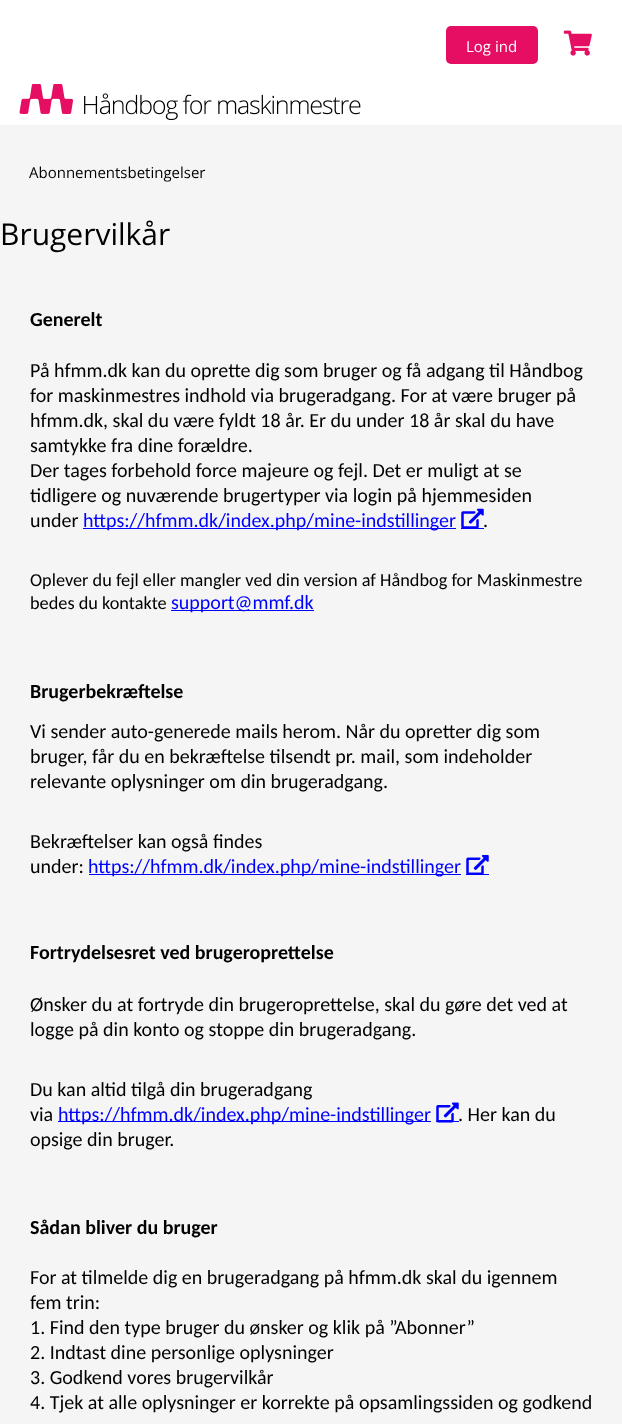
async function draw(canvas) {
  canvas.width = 622;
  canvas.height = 1424;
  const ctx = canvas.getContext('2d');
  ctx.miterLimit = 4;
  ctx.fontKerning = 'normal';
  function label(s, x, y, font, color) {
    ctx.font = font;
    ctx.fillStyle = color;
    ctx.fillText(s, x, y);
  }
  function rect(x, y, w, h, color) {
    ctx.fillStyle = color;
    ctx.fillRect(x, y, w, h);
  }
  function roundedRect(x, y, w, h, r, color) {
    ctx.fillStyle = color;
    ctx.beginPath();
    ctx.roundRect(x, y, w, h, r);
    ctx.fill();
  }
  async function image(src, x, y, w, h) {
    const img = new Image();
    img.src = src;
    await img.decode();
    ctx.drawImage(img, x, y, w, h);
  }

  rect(0, 0, 622, 1424, '#f5f5f5');
  rect(0, 0, 622, 125, '#fff');
  roundedRect(446, 26, 92, 38, 5, '#e50e63');
  label('Log ind', 466, 52, '15px Open Sans', '#fff');
  await image('assets/img1.png', 563, 30, 29, 26);
  await image('assets/img2.png', 19, 84, 342, 36);
  label('Abonnementsbetingelser', 29, 178, '15px Open Sans', '#000');
  label('Brugervilkår', 0, 245, '30px Open Sans', '#000');
  label('Generelt', 30, 326, 'bold 20px Carlito', '#000');
  label('På hfmm.dk kan du oprette dig som bruger og få adgang til Håndbog', 30, 377, '20px Carlito', '#000');
  label('for maskinmestres indhold via brugeradgang. For at være bruger på', 30, 402, '20px Carlito', '#000');
  label('hfmm.dk, skal du være fyldt 18 år. Er du under 18 år skal du have', 30, 427, '20px Carlito', '#000');
  label('samtykke fra dine forældre.', 30, 452, '20px Carlito', '#000');
  label('Der tages forbehold force majeure og fejl. Det er muligt at se', 30, 477, '20px Carlito', '#000');
  label('tidligere og nuværende brugertyper via login på hjemmesiden', 30, 502, '20px Carlito', '#000');
  label('under', 30, 527, '20px Carlito', '#000');
  rect(83, 528, 373, 1, '#00f');
  label('https://hfmm.dk/index.php/mine-indstillinger', 83, 527, '20px Carlito', '#00f');
  await image('assets/img3.png', 461, 508, 23, 20);
  label('.', 483, 527, '20px Carlito', '#000');
  rect(461, 528, 23, 1, '#00f');
  label('Oplever du fejl eller mangler ved din version af Håndbog for Maskinmestre', 30, 586, '18.3px Carlito', '#000');
  label('bedes du kontakte', 30, 609, '18.3px Carlito', '#000');
  rect(171, 610, 143, 1, '#00f');
  label('support@mmf.dk', 171, 609, '20px Carlito', '#00f');
  label('Brugerbekræftelse', 30, 698, 'bold 20px Carlito', '#000');
  label('Vi sender auto-generede mails herom. Når du opretter dig som', 30, 738, '20px Carlito', '#000');
  label('bruger, får du en bekræftelse tilsendt pr. mail, som indeholder', 30, 763, '20px Carlito', '#000');
  label('relevante oplysninger om din brugeradgang.', 30, 788, '20px Carlito', '#000');
  label('Bekræftelser kan også findes', 30, 848, '20px Carlito', '#000');
  label('under:', 30, 873, '20px Carlito', '#000');
  rect(89, 874, 372, 1, '#00f');
  label('https://hfmm.dk/index.php/mine-indstillinger', 88, 873, '20px Carlito', '#00f');
  rect(466, 874, 23, 1, '#00f');
  await image('assets/img4.png', 466, 855, 23, 19);
  label('Fortrydelsesret ved brugeroprettelse', 30, 959, 'bold 20px Carlito', '#000');
  label('Ønsker du at fortryde din brugeroprettelse, skal du gøre det ved at', 30, 1011, '20px Carlito', '#000');
  label('logge på din konto og stoppe din brugeradgang.', 30, 1036, '20px Carlito', '#000');
  label('Du kan altid tilgå din brugeradgang', 30, 1096, '20px Carlito', '#000');
  label('via', 30, 1121, '20px Carlito', '#000');
  rect(58, 1121, 373, 1, '#00f');
  label('https://hfmm.dk/index.php/mine-indstillinger', 58, 1121, '20px Carlito', '#00f');
  rect(436, 1121, 23, 1, '#00f');
  await image('assets/img5.png', 436, 1102, 23, 21);
  label('. Her kan du', 458, 1121, '20px Carlito', '#000');
  label('opsige din bruger.', 30, 1146, '20px Carlito', '#000');
  label('Sådan bliver du bruger', 30, 1234, 'bold 20px Carlito', '#000');
  label('For at tilmelde dig en brugeradgang på hfmm.dk skal du igennem', 30, 1284, '20px Carlito', '#000');
  label('fem trin:', 30, 1309, '20px Carlito', '#000');
  label('1. Find den type bruger du ønsker og klik på ”Abonner”', 30, 1334, '20px Carlito', '#000');
  label('2. Indtast dine personlige oplysninger', 30, 1359, '20px Carlito', '#000');
  label('3. Godkend vores brugervilkår', 30, 1384, '20px Carlito', '#000');
  label('4. Tjek at alle oplysninger er korrekte på opsamlingssiden og godkend', 30, 1409, '20px Carlito', '#000');
}

draw(document.querySelector('canvas'));
